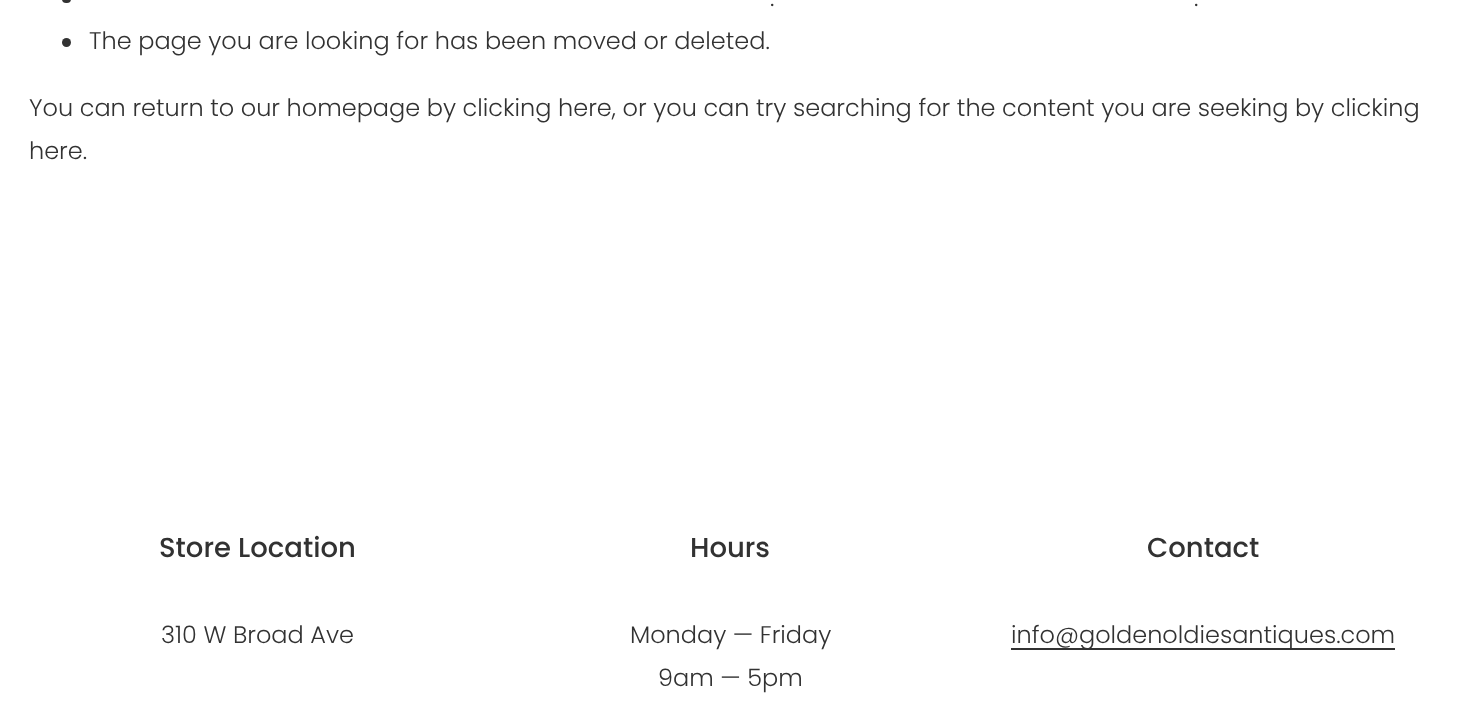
async function draw(canvas) {
  canvas.width = 1461;
  canvas.height = 701;
  const ctx = canvas.getContext('2d');
  ctx.miterLimit = 4;
  ctx.fontKerning = 'normal';
  function label(s, x, y, font, color) {
    ctx.font = font;
    ctx.fillStyle = color;
    ctx.fillText(s, x, y);
  }
  function rect(x, y, w, h, color) {
    ctx.fillStyle = color;
    ctx.fillRect(x, y, w, h);
  }
  function roundedRect(x, y, w, h, r, color) {
    ctx.fillStyle = color;
    ctx.beginPath();
    ctx.roundRect(x, y, w, h, r);
    ctx.fill();
  }

  rect(0, 0, 1461, 701, '#fff');
  roundedRect(62, -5, 9, 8, 4.5, '#323232');
  label('.', 770, 6, '300 24px Poppins', '#323232');
  label('.', 1194, 6, '300 24px Poppins', '#323232');
  ctx.beginPath();
  ctx.arc(66.5, 42.5, 4.5, 0, 2 * Math.PI);
  ctx.fill();
  label('The page you are looking for has been moved or deleted.', 89, 49, '300 24px Poppins', '#323232');
  label('You can return to our homepage by clicking here, or you can try searching for the content you are seeking by clicking', 29, 116, '300 24px Poppins', '#323232');
  label('here.', 29, 159, '300 24px Poppins', '#323232');
  label('Store Location', 159, 557, '500 27.5px Poppins', '#323232');
  label('310 W Broad Ave', 161, 643, '300 24px Poppins', '#323232');
  label('Hours', 690, 557, '500 27.5px Poppins', '#323232');
  label('Monday — Friday', 630, 643, '300 24px Poppins', '#323232');
  label('9am — 5pm', 658, 686, '300 24px Poppins', '#323232');
  label('Contact', 1147, 557, '500 27.5px Poppins', '#323232');
  rect(1011, 648, 384, 2, '#323232');
  label('info@goldenoldiesantiques.com', 1011, 643, '300 24px Poppins', '#323232');
}

draw(document.querySelector('canvas'));
